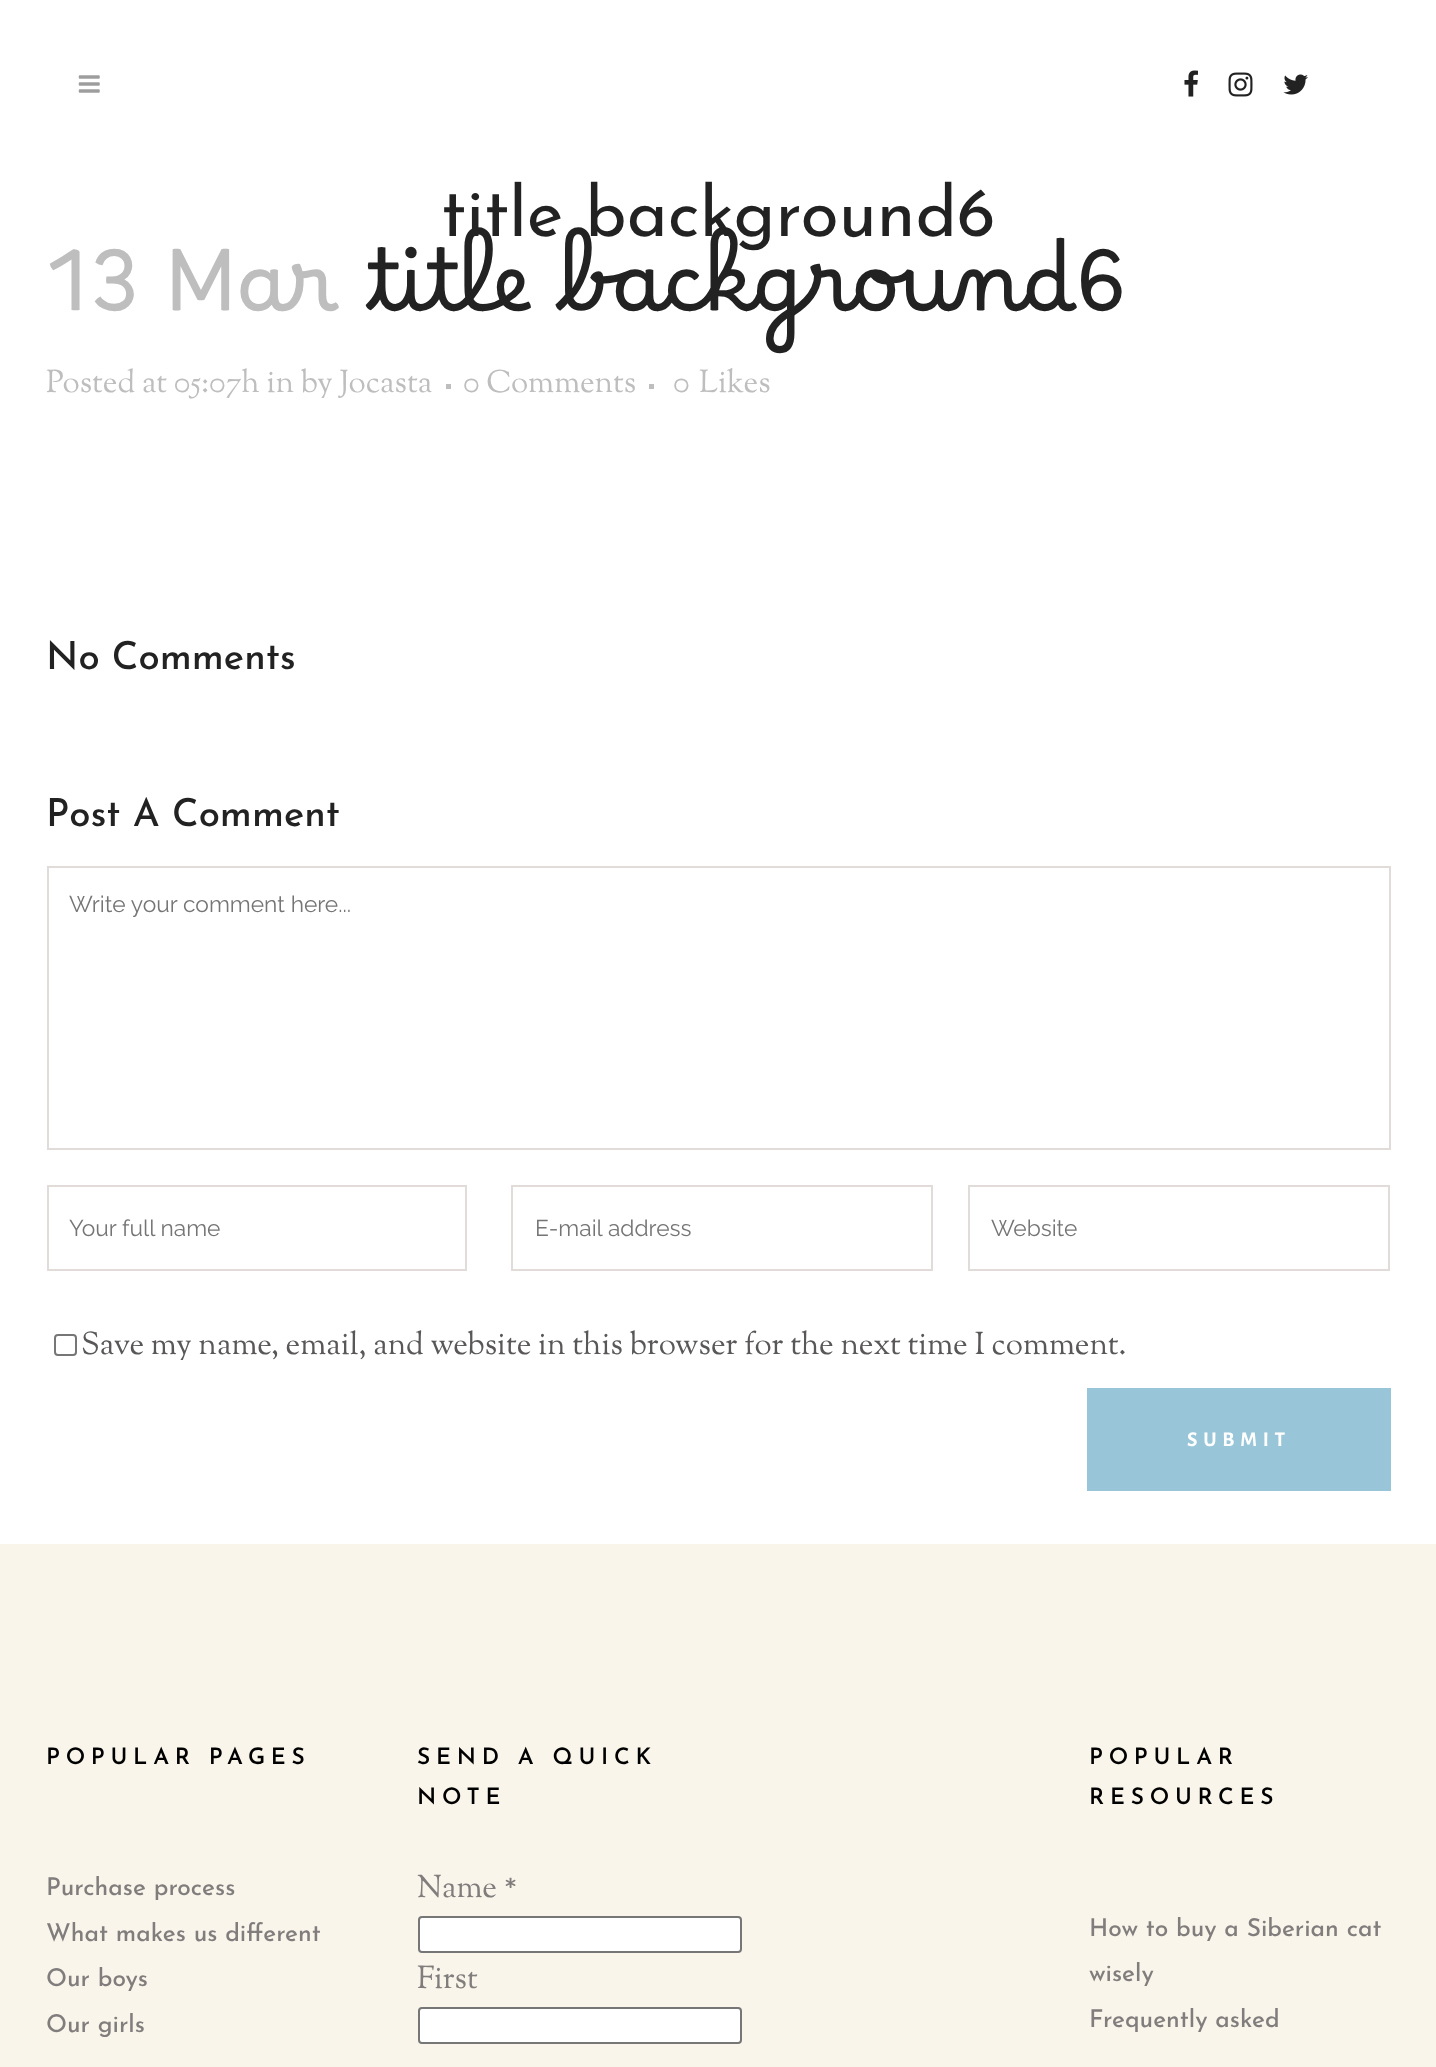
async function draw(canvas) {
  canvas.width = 1436;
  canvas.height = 2067;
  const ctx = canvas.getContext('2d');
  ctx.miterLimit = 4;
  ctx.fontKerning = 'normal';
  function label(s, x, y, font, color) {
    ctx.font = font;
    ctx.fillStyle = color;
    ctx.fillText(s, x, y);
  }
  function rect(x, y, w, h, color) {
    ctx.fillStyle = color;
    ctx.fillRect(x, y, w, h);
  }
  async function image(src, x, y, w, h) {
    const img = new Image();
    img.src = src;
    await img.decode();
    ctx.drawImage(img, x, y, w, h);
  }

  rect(0, 0, 1436, 2067, '#fff');
  await image('assets/img1.png', 78, 75, 22, 18);
  await image('assets/img2.png', 1184, 70, 14, 27);
  await image('assets/img3.png', 1228, 72, 25, 25);
  await image('assets/img4.png', 1283, 74, 25, 21);
  label('title background6', 441, 236, '70px Josefin Sans', '#222');
  label('13 Mar', 46, 310, '84px Borel', '#bebebe');
  label('title background6', 364, 310, '84px Borel', '#222');
  label('Posted at 05:07h in by Jocasta', 46, 392, '31.5px Sorts Mill Goudy', '#bebebe');
  rect(446, 384, 5, 5, '#bebebe');
  label('0 Comments', 463, 392, '31.5px Sorts Mill Goudy', '#bebebe');
  rect(649, 384, 5, 5, '#bebebe');
  label('0', 673, 392, '31.5px Sorts Mill Goudy', '#bebebe');
  label('Likes', 699, 392, '31.5px Sorts Mill Goudy', '#bebebe');
  label('No Comments', 46, 669, '500 38.5px Josefin Sans', '#222');
  label('Post A Comment', 46, 826, '500 38.5px Josefin Sans', '#222');
  ctx.strokeStyle = '#e1dbd9';
  ctx.lineWidth = 2;
  ctx.strokeRect(48, 867, 1342, 282);
  label('Write your comment here...', 69, 912, '22.75px Raleway', '#757575');
  ctx.strokeRect(48, 1186, 418, 84);
  label('Your full name', 69, 1236, '22.75px Raleway', '#757575');
  ctx.strokeRect(512, 1186, 420, 84);
  label('E-mail address', 535, 1236, '22.75px Raleway', '#757575');
  ctx.strokeRect(969, 1186, 420, 84);
  label('Website', 991, 1236, '22.75px Raleway', '#757575');
  ctx.beginPath();
  ctx.roundRect(55, 1335, 21, 20, 3);
  ctx.strokeStyle = '#767676';
  ctx.stroke();
  label('Save my name, email, and website in this browser for the next time I comment.', 81, 1354, '31.5px Sorts Mill Goudy', '#595757');
  rect(1087, 1388, 304, 103, '#98c5d7');
  ctx.letterSpacing = '5.75px';
  label('SUBMIT', 1187, 1446, 'bold 21px Alegreya Sans', '#fff');
  rect(0, 1544, 1436, 523, '#f9f5ea');
  label('POPULAR PAGES', 46, 1764, '600 22.75px Josefin Sans', '#000');
  ctx.letterSpacing = '0px';
  label('Purchase process', 46, 1895, '500 24.5px Josefin Sans', '#817d7d');
  label('What makes us different', 46, 1941, '500 24.5px Josefin Sans', '#817d7d');
  label('Our boys', 46, 1986, '500 24.5px Josefin Sans', '#817d7d');
  label('Our girls', 46, 2032, '500 24.5px Josefin Sans', '#817d7d');
  ctx.letterSpacing = '5.75px';
  label('SEND A QUICK', 417, 1764, '600 22.75px Josefin Sans', '#000');
  label('NOTE', 417, 1804, '600 22.75px Josefin Sans', '#000');
  ctx.letterSpacing = '0px';
  label('Name *', 417, 1897, '31.5px Sorts Mill Goudy', '#817d7d');
  ctx.fillStyle = '#fff';
  ctx.beginPath();
  ctx.roundRect(419, 1917, 322, 35, 3);
  ctx.fill();
  ctx.stroke();
  label('First', 417, 1988, '31.5px Sorts Mill Goudy', '#817d7d');
  ctx.fillStyle = '#fff';
  ctx.beginPath();
  ctx.roundRect(419, 2008, 322, 35, 3);
  ctx.fill();
  ctx.stroke();
  ctx.letterSpacing = '5.75px';
  label('POPULAR', 1089, 1764, '600 22.75px Josefin Sans', '#000');
  label('RESOURCES', 1089, 1804, '600 22.75px Josefin Sans', '#000');
  ctx.letterSpacing = '0px';
  label('How to buy a Siberian cat', 1089, 1936, '500 24.5px Josefin Sans', '#817d7d');
  label('wisely', 1089, 1981, '500 24.5px Josefin Sans', '#817d7d');
  label('Frequently asked', 1089, 2027, '500 24.5px Josefin Sans', '#817d7d');
}

draw(document.querySelector('canvas'));
